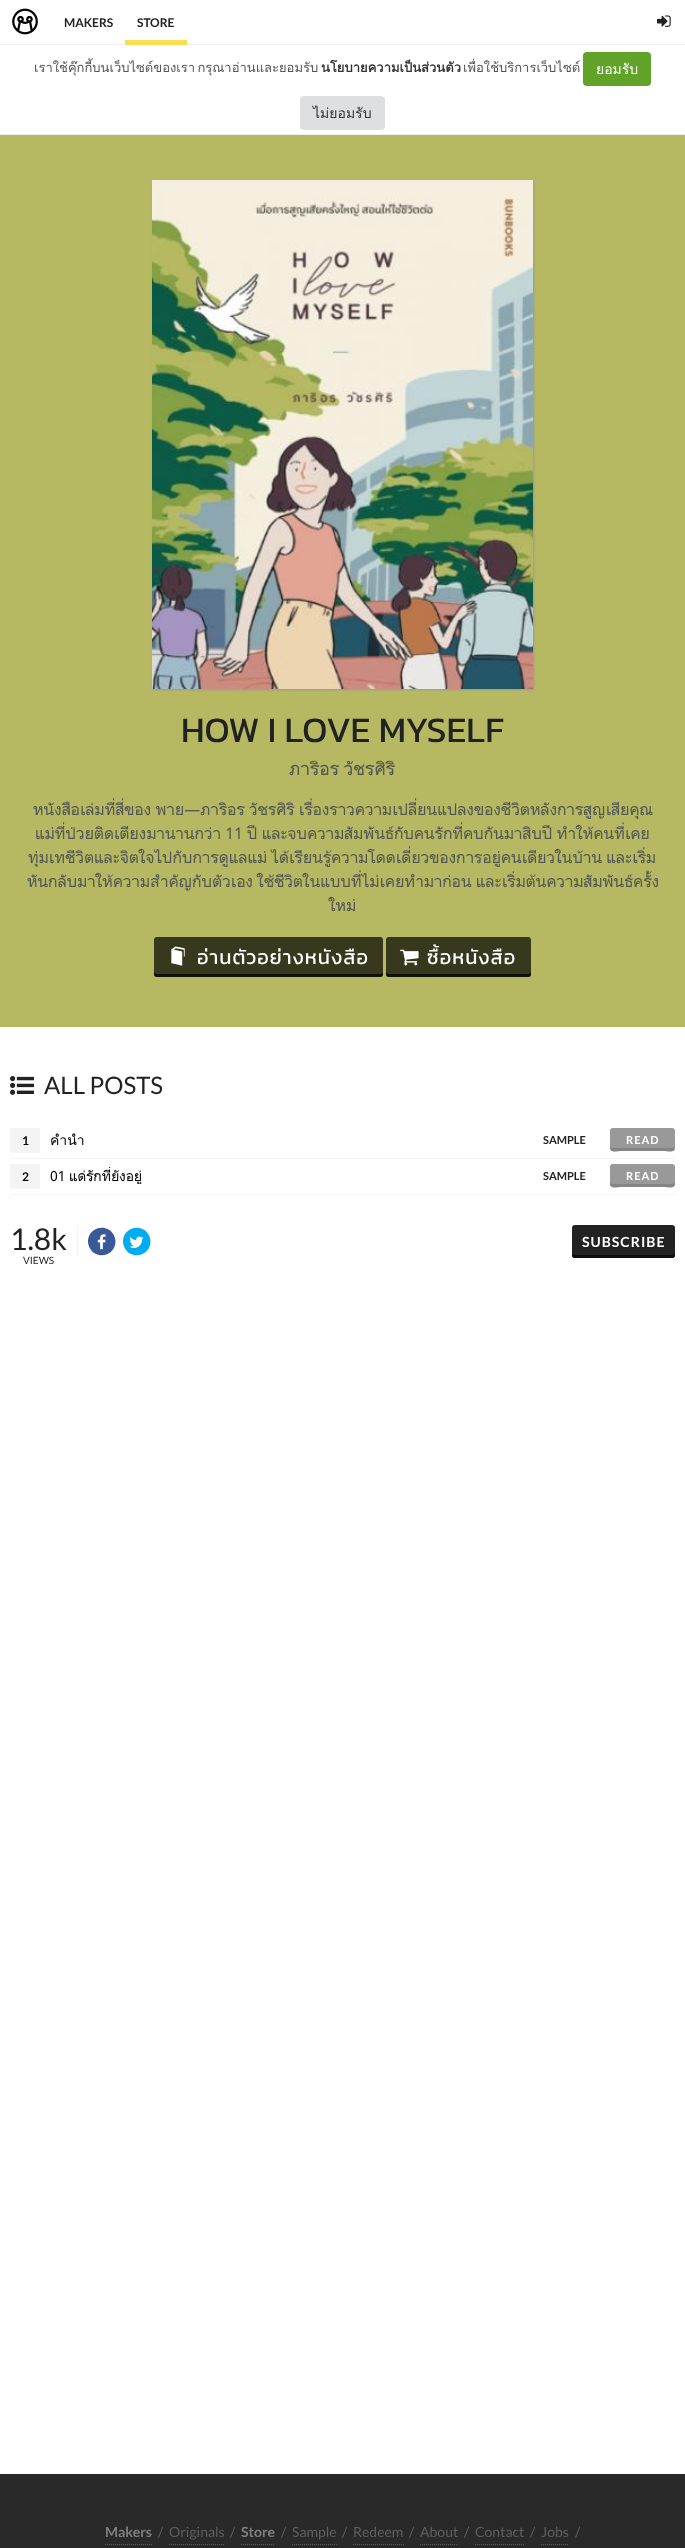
async function draw(canvas) {
  canvas.width = 685;
  canvas.height = 2548;
  const ctx = canvas.getContext('2d');
  ctx.miterLimit = 4;
  ctx.fontKerning = 'normal';
  function label(s, x, y, font, color) {
    ctx.font = font;
    ctx.fillStyle = color;
    ctx.fillText(s, x, y);
  }
  function rect(x, y, w, h, color) {
    ctx.fillStyle = color;
    ctx.fillRect(x, y, w, h);
  }
  function roundedRect(x, y, w, h, r, color) {
    ctx.fillStyle = color;
    ctx.beginPath();
    ctx.roundRect(x, y, w, h, r);
    ctx.fill();
  }
  async function image(src, x, y, w, h) {
    const img = new Image();
    img.src = src;
    await img.decode();
    ctx.drawImage(img, x, y, w, h);
  }
  let path;

  rect(0, 0, 685, 2548, '#fff');
  rect(0, 44, 685, 1, '#eee');
  await image('assets/img1.png', 12, 8, 26, 27);
  label('MAKERS', 64, 27, 'bold 12px Lato', '#222');
  rect(125, 40, 62, 5, '#f9dd53');
  label('STORE', 137, 27, 'bold 12px Lato', '#222');
  await image('assets/img2.png', 657, 15, 14, 12);
  rect(0, 134, 685, 1, '#eee');
  ctx.wordSpacing = '-2px';
  label('เราใช้คุ๊กกี้บนเว็บไซต์ของเรา กรุณาอ่านและยอมรับ', 34, 72, '13px Loma', '#555');
  ctx.wordSpacing = '0px';
  label('นโยบายความเป็นส่วนตัว', 321, 72, 'bold 13px Loma', '#333');
  label('เพื่อใช้บริการเว็บไซต์', 463, 72, '13px Loma', '#555');
  roundedRect(583, 52, 68, 34, 4, '#61a229');
  label('ยอมรับ', 596, 74, '14px Loma', '#fff');
  roundedRect(300, 96, 85, 34, 4, '#dedfe0');
  label('ไม่ยอมรับ', 313, 118, '14px Loma', '#333');
  rect(0, 135, 685, 892, '#b6b962');
  ctx.fillStyle = '#999';
  ctx.filter = 'blur(1px)';
  ctx.beginPath();
  ctx.rect(153, 181, 381, 509);
  ctx.fill();
  ctx.filter = 'none';
  await image('assets/img3.png', 152, 180, 381, 509);
  label('HOW I LOVE MYSELF', 181, 742, '36px Kanit', '#222');
  label('ภาริอร วัชรศิริ', 289, 775, '18px Droid Sans', '#555');
  label('หนังสือเล่มที่สี่ของ พาย—ภาริอร วัชรศิริ เรื่องราวความเปลี่ยนแปลงของชีวิตหลังการสูญเสียคุณ', 33, 815, '16px Droid Sans', '#555');
  label('แม่ที่ป่วยติดเตียงมานานกว่า 11 ปี และจบความสัมพันธ์กับคนรักที่คบกันมาสิบปี ทำให้คนที่เคย', 35, 839, '16px Droid Sans', '#555');
  label('ทุ่มเทชีวิตและจิตใจไปกับการดูแลแม่ ได้เรียนรู้ความโดดเดี่ยวของการอยู่คนเดียวในบ้าน และเริ่ม', 28, 863, '16px Droid Sans', '#555');
  label('หันกลับมาให้ความสำคัญกับตัวเอง ใช้ชีวิตในแบบที่ไม่เคยทำมาก่อน และเริ่มต้นความสัมพันธ์ครั้ง', 27, 887, '16px Droid Sans', '#555');
  label('ใหม่', 329, 911, '16px Droid Sans', '#555');
  roundedRect(154, 937, 229, 40, 3, '#37381d');
  ctx.fillStyle = '#000000b3';
  path = new Path2D('M154 971V974C154 976 155 977 157 977H380C382 977 383 976 383 974V971C383 973 382 974 380 974H157C155 974 154 973 154 971Z');
  ctx.fill(path);
  await image('assets/img4.png', 171, 946, 14, 20);
  ctx.letterSpacing = '1px';
  label('อ่านตัวอย่างหนังสือ', 197, 964, '20px Kanit', '#fff');
  roundedRect(386, 937, 145, 40, 3, '#37381d');
  ctx.fillStyle = '#000000b3';
  path = new Path2D('M386 971V974C386 976 387 977 389 977H528C530 977 531 976 531 974V971C531 973 530 974 528 974H389C387 974 386 973 386 971Z');
  ctx.fill(path);
  await image('assets/img5.png', 400, 949, 19, 17);
  label('ซื้อหนังสือ', 427, 964, '20px Kanit', '#fff');
  await image('assets/img6.png', 10, 1076, 24, 19);
  ctx.letterSpacing = '0px';
  label('ALL POSTS', 44, 1094, '24px Lato', '#222');
  rect(10, 1158, 665, 1, '#f4f4f4');
  rect(10, 1128, 30, 25, '#f4f4f4');
  label('1', 22, 1145, 'bold 12px Lato', '#000');
  ctx.save();
  ctx.beginPath();
  ctx.rect(50, 1131, 459, 17);
  ctx.clip();
  label('คำนำ', 50, 1145, '14px Droid Sans', '#000');
  ctx.restore();
  label('SAMPLE', 543, 1144, 'bold 11px Lato', '#222');
  roundedRect(610, 1128, 65, 23, 3, '#999');
  ctx.fillStyle = '#858585';
  path = new Path2D('M610 1145C610 1154 614 1151 623 1151H662C671 1151 675 1154 675 1145C675 1147 674 1148 672 1148H613C611 1148 610 1147 610 1145Z');
  ctx.fill(path);
  ctx.letterSpacing = '1px';
  label('READ', 626, 1144, 'bold 11px Lato', '#fff');
  rect(10, 1194, 665, 1, '#f4f4f4');
  rect(10, 1164, 30, 25, '#f4f4f4');
  ctx.letterSpacing = '0px';
  label('2', 22, 1181, 'bold 12px Lato', '#000');
  ctx.save();
  ctx.beginPath();
  ctx.rect(50, 1167, 459, 17);
  ctx.clip();
  label('01 แด่รักที่ยังอยู่', 50, 1181, '14px Droid Sans', '#000');
  ctx.restore();
  label('SAMPLE', 543, 1180, 'bold 11px Lato', '#222');
  roundedRect(610, 1164, 65, 23, 3, '#999');
  ctx.fillStyle = '#858585';
  path = new Path2D('M610 1181C610 1190 614 1187 623 1187H662C671 1187 675 1190 675 1181C675 1183 674 1184 672 1184H613C611 1184 610 1183 610 1181Z');
  ctx.fill(path);
  ctx.letterSpacing = '1px';
  label('READ', 626, 1180, 'bold 11px Lato', '#fff');
  rect(77, 1225, 1, 31, '#f4f4f4');
  ctx.letterSpacing = '0px';
  label('1.8k', 10, 1250, '30px Lato', '#222');
  label('VIEWS', 23, 1264, '10px Lato', '#222');
  ctx.fillStyle = '#3b5998';
  path = new Path2D('M113.5 1234.5C115 1237 115.5 1240 115.5 1242.5C114.5 1256 96.5 1260 90 1248.5C88.5 1246 88 1243.5 88 1240.5C89 1227 107 1223 113.5 1234.5Z');
  ctx.fill(path);
  await image('assets/img7.png', 97, 1234, 9, 16);
  ctx.fillStyle = '#00acee';
  path = new Path2D('M148.5 1234.5C150 1237 150.5 1240 150.5 1242.5C149.5 1256 131.5 1260 125 1248.5C123.5 1246 123 1243.5 123 1240.5C124 1227 142 1223 148.5 1234.5Z');
  ctx.fill(path);
  await image('assets/img8.png', 129, 1236, 15, 12);
  roundedRect(572, 1225, 103, 33, 3, '#222');
  ctx.fillStyle = '#0e0e0e';
  path = new Path2D('M572 1252V1255C572 1257 573 1258 575 1258H672C674 1258 675 1257 675 1255V1252C675 1254 674 1255 672 1255H575C573 1255 572 1254 572 1252Z');
  ctx.fill(path);
  ctx.letterSpacing = '1px';
  label('SUBSCRIBE', 582, 1247, 'bold 14px Lato', '#fff');
  rect(0, 2474, 685, 74, '#292929');
  path = new Path2D('M105 2544.5H152');
  ctx.strokeStyle = '#5f5f5f';
  ctx.setLineDash([1, 1]);
  ctx.stroke(path);
  ctx.letterSpacing = '0px';
  label('Makers', 105, 2537, 'bold 14px Lato', '#7f7f7f');
  label('/', 158, 2537, '14px Lato', '#5f5f5f');
  path = new Path2D('M169 2544.5H225');
  ctx.stroke(path);
  label('Originals', 169, 2537, '14px Lato', '#5f5f5f');
  label('/', 230, 2537, '14px Lato', '#5f5f5f');
  path = new Path2D('M241 2544.5H275');
  ctx.stroke(path);
  label('Store', 241, 2537, 'bold 14px Lato', '#7f7f7f');
  label('/', 281, 2537, '14px Lato', '#5f5f5f');
  path = new Path2D('M292 2544.5H337');
  ctx.stroke(path);
  label('Sample', 292, 2537, '14px Lato', '#5f5f5f');
  label('/', 342, 2537, '14px Lato', '#5f5f5f');
  path = new Path2D('M353 2544.5H404');
  ctx.stroke(path);
  label('Redeem', 353, 2537, '14px Lato', '#5f5f5f');
  label('/', 409, 2537, '14px Lato', '#5f5f5f');
  path = new Path2D('M420 2544.5H458');
  ctx.stroke(path);
  label('About', 420, 2537, '14px Lato', '#5f5f5f');
  label('/', 464, 2537, '14px Lato', '#5f5f5f');
  path = new Path2D('M475 2544.5H524');
  ctx.stroke(path);
  label('Contact', 475, 2537, '14px Lato', '#5f5f5f');
  label('/', 530, 2537, '14px Lato', '#5f5f5f');
  path = new Path2D('M541 2544.5H569');
  ctx.stroke(path);
  label('Jobs', 541, 2537, '14px Lato', '#5f5f5f');
  label('/', 575, 2537, '14px Lato', '#5f5f5f');
}

draw(document.querySelector('canvas'));
